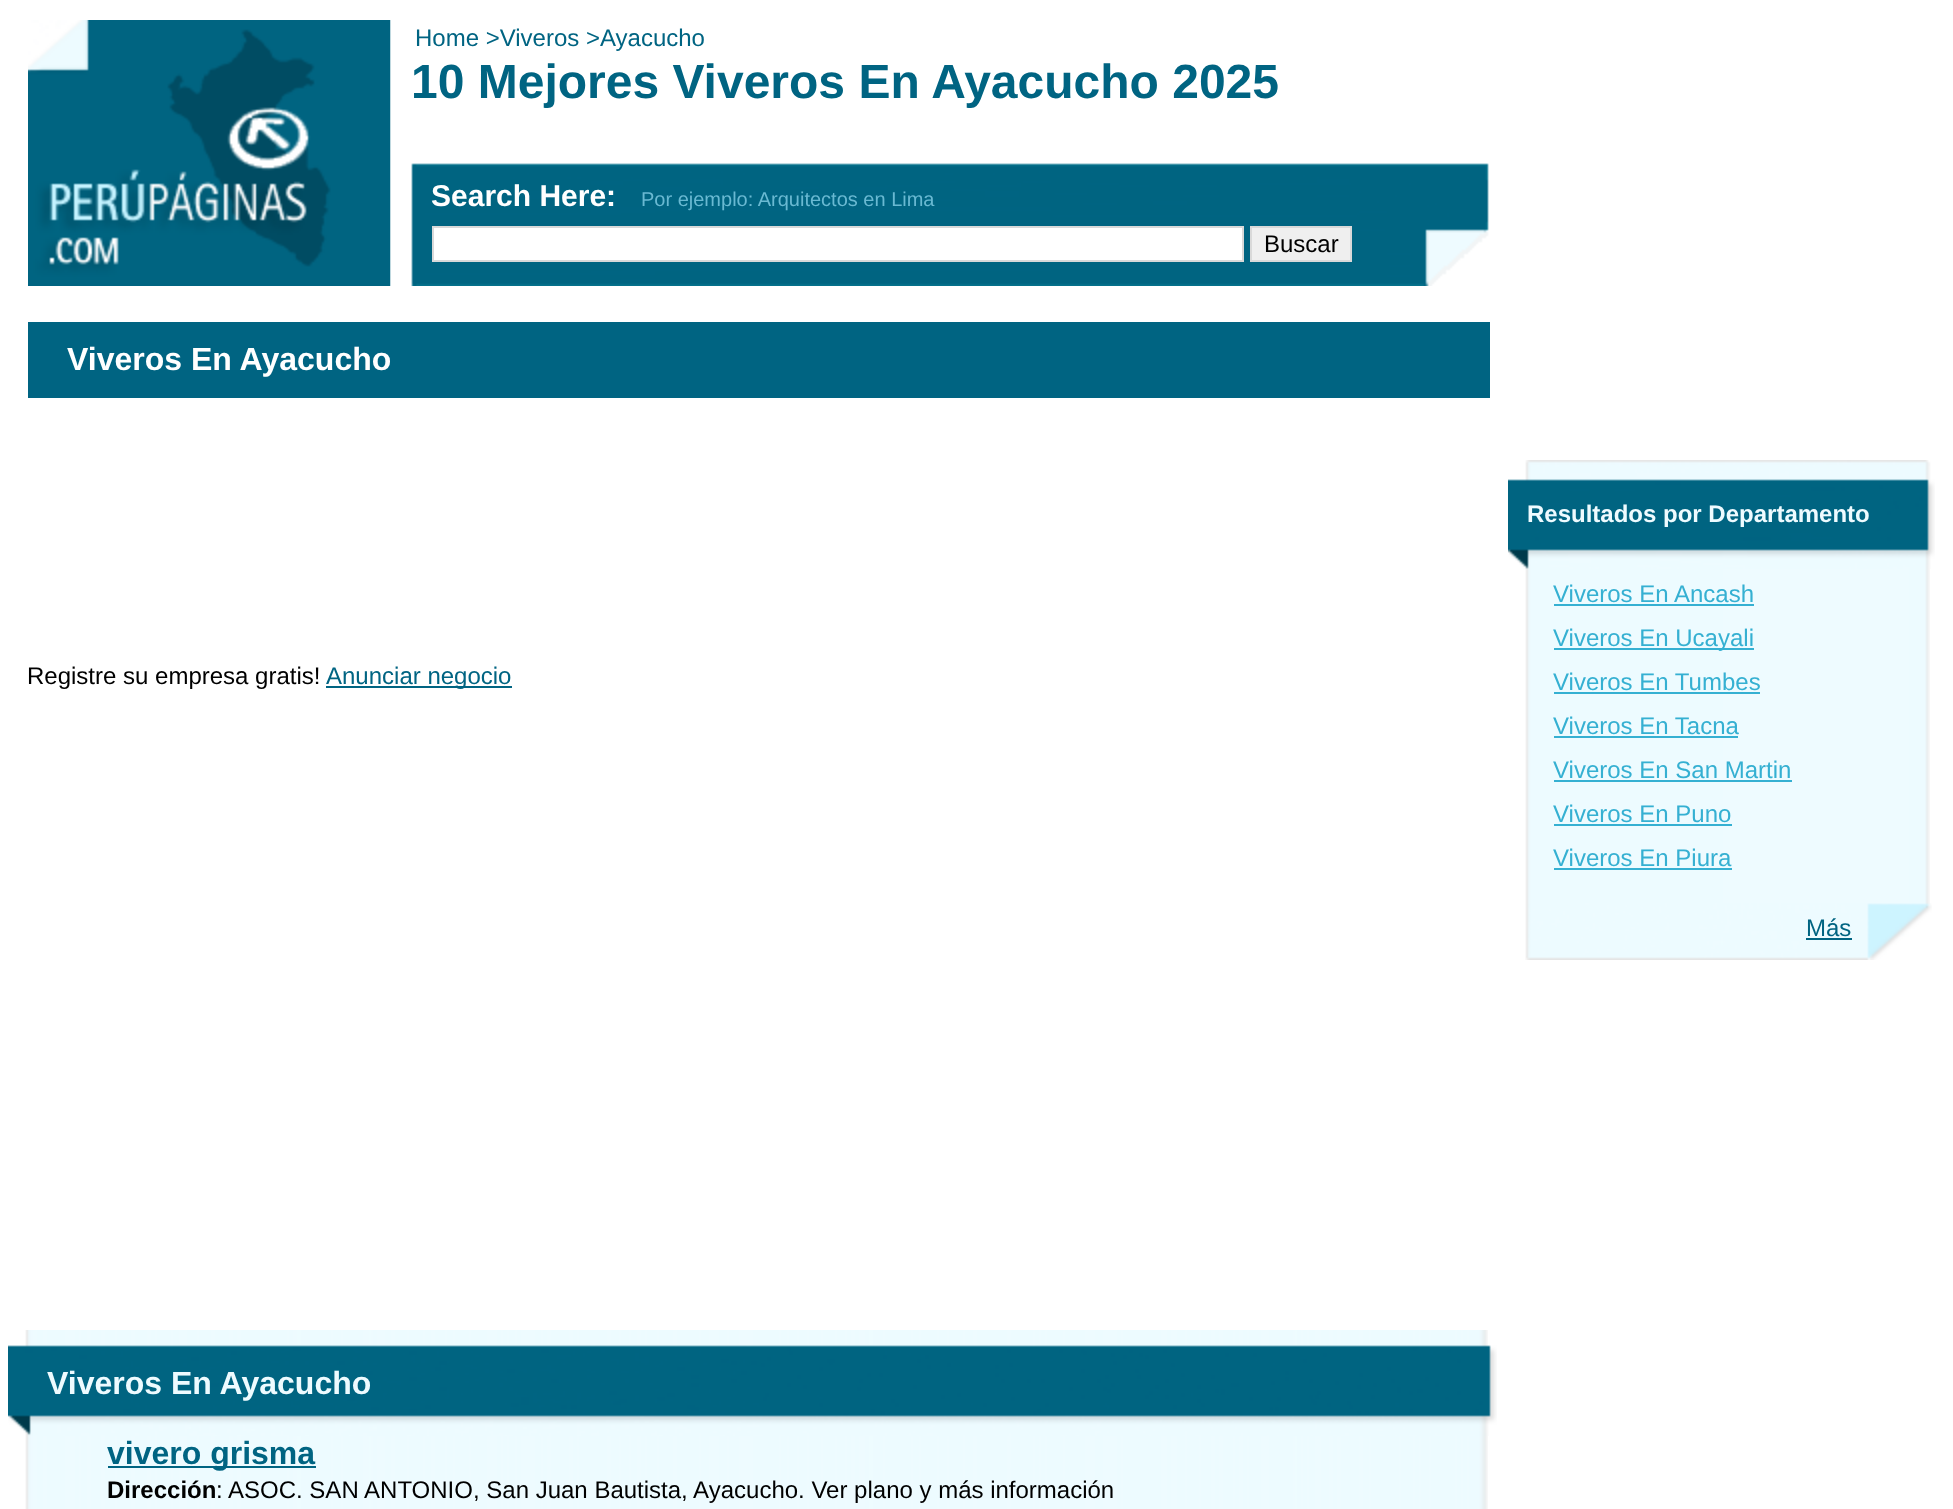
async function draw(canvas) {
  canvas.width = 1953;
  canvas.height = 1509;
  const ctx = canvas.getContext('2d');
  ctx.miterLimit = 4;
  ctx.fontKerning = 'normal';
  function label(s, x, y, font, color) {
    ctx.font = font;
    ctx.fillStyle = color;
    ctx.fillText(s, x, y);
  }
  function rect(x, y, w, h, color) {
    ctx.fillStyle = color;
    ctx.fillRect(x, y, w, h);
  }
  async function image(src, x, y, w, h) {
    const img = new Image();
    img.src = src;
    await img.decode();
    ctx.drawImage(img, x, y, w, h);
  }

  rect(0, 0, 1953, 1509, '#fff');
  await image('assets/img1.png', 28, 20, 1461, 266);
  await image('assets/img2.png', 28, 20, 362, 266);
  label('Home >Viveros >Ayacucho', 415, 46, '24px Liberation Sans', '#006482');
  label('10 Mejores Viveros En Ayacucho 2025', 411, 98, 'bold 48px Liberation Sans', '#006482');
  label('Search Here:', 431, 206, 'bold 30px Liberation Sans', '#fff');
  label('Por ejemplo: Arquitectos en Lima', 641, 206, '20px Liberation Sans', '#69b9d2');
  ctx.fillStyle = '#fff';
  ctx.beginPath();
  ctx.rect(433, 227, 810, 34);
  ctx.fill();
  ctx.strokeStyle = '#d9d9d9';
  ctx.lineWidth = 2;
  ctx.stroke();
  ctx.fillStyle = '#efefef';
  ctx.beginPath();
  ctx.rect(1251, 227, 100, 34);
  ctx.fill();
  ctx.stroke();
  label('Buscar', 1264, 252, '24px Liberation Sans', '#000');
  rect(28, 322, 1462, 76, '#006482');
  label('Viveros En Ayacucho', 67, 370, 'bold 32px Liberation Sans', '#fff');
  label('Registre su empresa gratis!', 27, 684, '24px Liberation Sans', '#000');
  rect(326, 686, 186, 2, '#006482');
  label('Anunciar negocio', 326, 684, '24px Liberation Sans', '#006482');
  await image('assets/img3.png', 25, 1330, 1463, 179);
  await image('assets/img4.png', 8, 1345, 1489, 91);
  label('Viveros En Ayacucho', 47, 1394, 'bold 32px Liberation Sans', '#eefbff');
  rect(108, 1466, 208, 2, '#006482');
  label('vivero grisma', 107, 1464, 'bold 32px Liberation Sans', '#006482');
  label('Dirección', 107, 1498, 'bold 24px Liberation Sans', '#000');
  label(': ASOC. SAN ANTONIO, San Juan Bautista, Ayacucho. Ver plano y más información', 216, 1498, '24px Liberation Sans', '#000');
  await image('assets/img5.png', 1525, 569, 405, 391);
  await image('assets/img6.png', 1508, 460, 427, 109);
  label('Resultados por Departamento', 1527, 522, 'bold 24px Liberation Sans', '#eefbff');
  label('Viveros En Ancash', 1553, 602, '24px Liberation Sans', '#35b0d2');
  rect(1554, 604, 200, 2, '#35b0d2');
  rect(1554, 648, 200, 2, '#35b0d2');
  label('Viveros En Ucayali', 1553, 646, '24px Liberation Sans', '#35b0d2');
  label('Viveros En Tumbes', 1553, 690, '24px Liberation Sans', '#35b0d2');
  rect(1554, 692, 206, 2, '#35b0d2');
  label('Viveros En Tacna', 1553, 734, '24px Liberation Sans', '#35b0d2');
  rect(1554, 736, 184, 2, '#35b0d2');
  label('Viveros En San Martin', 1553, 778, '24px Liberation Sans', '#35b0d2');
  rect(1554, 780, 238, 2, '#35b0d2');
  label('Viveros En Puno', 1553, 822, '24px Liberation Sans', '#35b0d2');
  rect(1554, 824, 178, 2, '#35b0d2');
  label('Viveros En Piura', 1553, 866, '24px Liberation Sans', '#35b0d2');
  rect(1554, 868, 178, 2, '#35b0d2');
  await image('assets/img7.png', 1526, 903, 406, 57);
  label('Más', 1806, 936, '24px Liberation Sans', '#006482');
  rect(1806, 938, 46, 2, '#006482');
}

draw(document.querySelector('canvas'));
